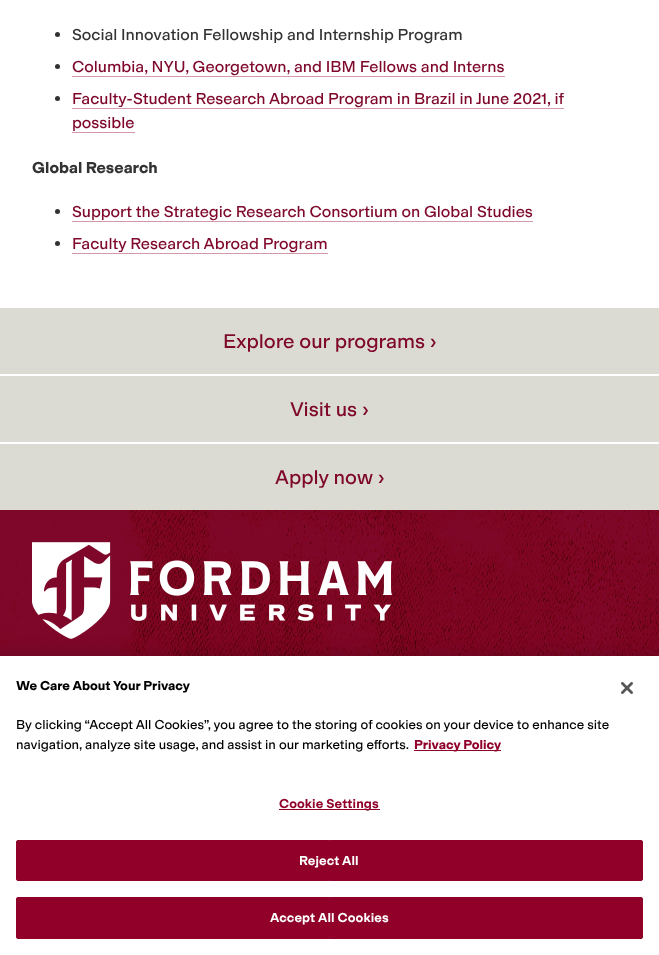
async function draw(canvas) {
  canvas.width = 659;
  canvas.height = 955;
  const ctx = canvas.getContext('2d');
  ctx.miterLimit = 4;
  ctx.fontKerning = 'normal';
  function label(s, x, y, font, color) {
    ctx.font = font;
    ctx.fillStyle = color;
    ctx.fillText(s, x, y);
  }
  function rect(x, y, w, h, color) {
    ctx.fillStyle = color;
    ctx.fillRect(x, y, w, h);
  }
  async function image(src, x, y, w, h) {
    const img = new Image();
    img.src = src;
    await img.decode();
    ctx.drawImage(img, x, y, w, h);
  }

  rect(0, 0, 659, 955, '#fff');
  ctx.fillStyle = '#333';
  ctx.beginPath();
  ctx.arc(57.5, 34.5, 2.5, 0, 2 * Math.PI);
  ctx.fill();
  label('Social Innovation Fellowship and Internship Program', 72, 40, '16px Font', '#333');
  ctx.beginPath();
  ctx.arc(57.5, 66.5, 2.5, 0, 2 * Math.PI);
  ctx.fill();
  label('Columbia, NYU, Georgetown, and IBM Fellows and Interns', 72, 72, '16px Font', '#7e072a');
  rect(72, 76, 433, 1, '#d399a9');
  ctx.fillStyle = '#333';
  ctx.beginPath();
  ctx.arc(57.5, 98.5, 2.5, 0, 2 * Math.PI);
  ctx.fill();
  label('Faculty-Student Research Abroad Program in Brazil in June 2021, if', 72, 104, '16px Font', '#7e072a');
  rect(72, 108, 492, 1, '#d399a9');
  label('possible', 72, 128, '16px Font', '#7e072a');
  rect(72, 132, 63, 1, '#d399a9');
  label('Global Research', 32, 173, 'bold 16px Font', '#333');
  ctx.beginPath();
  ctx.arc(57.5, 211.5, 2.5, 0, 2 * Math.PI);
  ctx.fill();
  label('Support the Strategic Research Consortium on Global Studies', 72, 217, '16px Font', '#7e072a');
  rect(72, 221, 461, 1, '#d399a9');
  ctx.fillStyle = '#333';
  ctx.beginPath();
  ctx.arc(57.5, 243.5, 2.5, 0, 2 * Math.PI);
  ctx.fill();
  label('Faculty Research Abroad Program', 72, 249, '16px Font', '#7e072a');
  rect(72, 253, 256, 1, '#d399a9');
  rect(0, 308, 659, 202, '#dbdbd3');
  label('Explore our programs ›', 223, 348, '20px Font', '#7e072a');
  ctx.strokeStyle = '#fff';
  ctx.lineWidth = 2;
  ctx.strokeRect(-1, 375, 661, 68);
  label('Visit us ›', 290, 416, '20px Font', '#7e072a');
  label('Apply now ›', 275, 484, '20px Font', '#7e072a');
  await image('assets/img1.png', 0, 510, 659, 146);
  await image('assets/img2.png', 32, 542, 360, 97);
  ctx.fillStyle = '#00000033';
  ctx.filter = 'blur(9px)';
  ctx.beginPath();
  ctx.rect(0, 656, 659, 299);
  ctx.fill();
  ctx.filter = 'none';
  rect(0, 656, 659, 299, '#fff');
  label('We Care About Your Privacy', 16, 690, 'bold 13px Font', '#000');
  label('By clicking “Accept All Cookies”, you agree to the storing of cookies on your device to enhance site', 16, 729, '13px Font', '#000');
  label('navigation, analyze site usage, and assist in our marketing efforts.', 16, 749, '13px Font', '#000');
  rect(414, 750, 87, 1, '#900028');
  label('Privacy Policy', 414, 749, 'bold 13px Font', '#900028');
  rect(279, 809, 101, 1, '#900028');
  ctx.letterSpacing = '0.1px';
  label('Cookie Settings', 279, 808, '600 13px Font', '#900028');
  ctx.beginPath();
  ctx.roundRect(16.5, 840.5, 626, 40, 1.5);
  ctx.fill();
  ctx.strokeStyle = '#900028';
  ctx.lineWidth = 1;
  ctx.stroke();
  label('Reject All', 299, 865, '600 13px Font', '#fff');
  ctx.fillStyle = '#900028';
  ctx.beginPath();
  ctx.roundRect(16.5, 897.5, 626, 41, 1.5);
  ctx.fill();
  ctx.stroke();
  label('Accept All Cookies', 270, 922, '600 13px Font', '#fff');
  await image('assets/img3.png', 621, 682, 12, 12);
}

draw(document.querySelector('canvas'));
